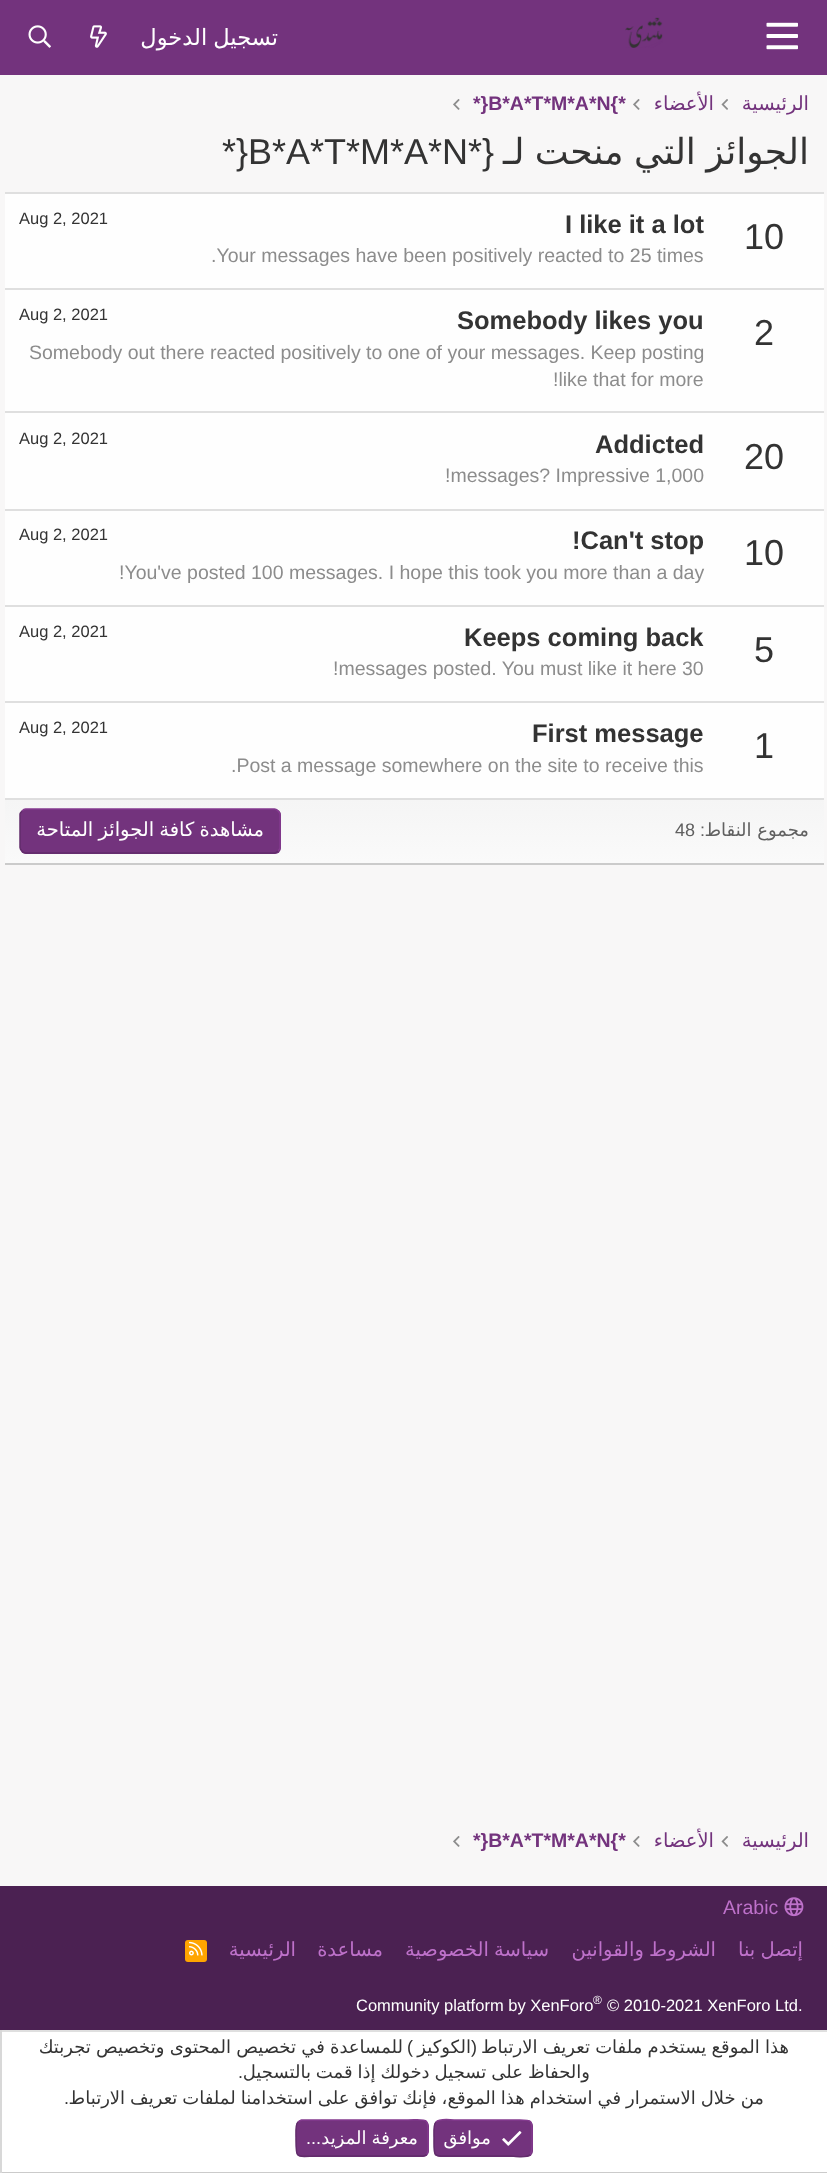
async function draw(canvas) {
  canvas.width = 827;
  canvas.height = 2173;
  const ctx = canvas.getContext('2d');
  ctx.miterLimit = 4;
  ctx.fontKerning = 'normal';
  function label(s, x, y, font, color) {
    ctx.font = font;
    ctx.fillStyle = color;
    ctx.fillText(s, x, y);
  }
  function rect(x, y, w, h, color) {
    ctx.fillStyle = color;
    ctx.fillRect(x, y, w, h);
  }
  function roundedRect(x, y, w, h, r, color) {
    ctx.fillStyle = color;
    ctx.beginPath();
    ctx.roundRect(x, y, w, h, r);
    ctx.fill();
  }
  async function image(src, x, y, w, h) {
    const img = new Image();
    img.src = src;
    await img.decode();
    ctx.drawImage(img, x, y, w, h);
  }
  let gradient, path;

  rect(0, 0, 827, 2173, '#f8f7f7');
  rect(0, 0, 827, 75, '#73337d');
  await image('assets/img1.png', 28, 25, 23, 23);
  await image('assets/img2.png', 90, 25, 17, 23);
  ctx.wordSpacing = '-1px';
  ctx.direction = 'rtl';
  label('تسجيل الدخول', 278, 45, '22.5px DejaVu Sans', '#fff');
  await image('assets/img3.png', 625, 17, 38, 31);
  await image('assets/img4.png', 766, 22, 32, 28);
  await image('assets/img5.png', 453, 99, 7, 11);
  ctx.wordSpacing = '0px';
  ctx.direction = 'ltr';
  label('*}B*A*T*M*A*N{*', 473, 110, 'bold 19.5px Liberation Sans', '#73337d');
  await image('assets/img5.png', 633, 99, 7, 11);
  ctx.direction = 'rtl';
  label('الأعضاء', 714, 110, '19.5px DejaVu Sans', '#73337d');
  await image('assets/img6.png', 721, 99, 7, 11);
  label('الرئيسية', 809, 110, '19.5px DejaVu Sans', '#73337d');
  ctx.direction = 'ltr';
  label('*}B*A*T*M*A*N', 222, 164, '36px Liberation Sans', '#333');
  ctx.direction = 'rtl';
  label('{*', 494, 164, '36px Liberation Sans', '#333');
  ctx.wordSpacing = '-1px';
  label('الجوائز التي منحت لـ', 809, 164, '36px DejaVu Sans', '#333');
  rect(5, 194, 819, 604, '#fefefe');
  rect(5, 192, 819, 2, '#dfdfdf');
  rect(5, 863, 819, 2, '#cbcbcb');
  ctx.wordSpacing = '0px';
  ctx.direction = 'ltr';
  label('Aug 2, 2021', 19, 224, '16.5px Liberation Sans', '#333');
  label('I like it a lot', 565, 233, 'bold 25.5px Liberation Sans', '#333');
  label('.Your messages have been positively reacted to 25 times', 211, 262, '19.5px Liberation Sans', '#8c8c8c');
  label('10', 744, 249, '36px Liberation Sans', '#333');
  rect(5, 288, 819, 2, '#dfdfdf');
  label('Aug 2, 2021', 19, 320, '16.5px Liberation Sans', '#333');
  label('Somebody likes you', 457, 329, 'bold 25.5px Liberation Sans', '#333');
  label('Somebody out there reacted positively to one of your messages. Keep posting', 29, 359, '19.5px Liberation Sans', '#8c8c8c');
  label('!like that for more', 553, 386, '19.5px Liberation Sans', '#8c8c8c');
  label('2', 754, 345, '36px Liberation Sans', '#333');
  rect(5, 411, 819, 2, '#dfdfdf');
  label('Aug 2, 2021', 19, 444, '16.5px Liberation Sans', '#333');
  label('Addicted', 595, 453, 'bold 25.5px Liberation Sans', '#333');
  label('!messages? Impressive 1,000', 445, 482, '19.5px Liberation Sans', '#8c8c8c');
  label('20', 744, 469, '36px Liberation Sans', '#333');
  rect(5, 509, 819, 2, '#dfdfdf');
  label('Aug 2, 2021', 19, 540, '16.5px Liberation Sans', '#333');
  label('!Can\'t stop', 572, 549, 'bold 25.5px Liberation Sans', '#333');
  label('!You\'ve posted 100 messages. I hope this took you more than a day', 119, 579, '19.5px Liberation Sans', '#8c8c8c');
  label('10', 744, 565, '36px Liberation Sans', '#333');
  rect(5, 605, 819, 2, '#dfdfdf');
  label('Aug 2, 2021', 19, 637, '16.5px Liberation Sans', '#333');
  label('Keeps coming back', 464, 646, 'bold 25.5px Liberation Sans', '#333');
  label('!messages posted. You must like it here 30', 333, 675, '19.5px Liberation Sans', '#8c8c8c');
  label('5', 754, 662, '36px Liberation Sans', '#333');
  rect(5, 701, 819, 2, '#dfdfdf');
  label('Aug 2, 2021', 19, 733, '16.5px Liberation Sans', '#333');
  label('First message', 532, 742, 'bold 25.5px Liberation Sans', '#333');
  label('.Post a message somewhere on the site to receive this', 231, 772, '19.5px Liberation Sans', '#8c8c8c');
  label('1', 754, 758, '36px Liberation Sans', '#333');
  gradient = ctx.createLinearGradient(414, 800, 414, 863);
  gradient.addColorStop(0, '#f5f5f5');
  gradient.addColorStop(1, '#fafafa');
  ctx.fillStyle = gradient;
  ctx.fillRect(5, 800, 819, 63);
  rect(5, 798, 819, 2, '#dfdfdf');
  roundedRect(20, 809, 261, 45, 6, '#73337d');
  path = new Path2D('M22 811C23 810 24 809 25.5 809H274.5C276 809 277 810 278 811C279 812 280 813 280 814.5V847.5C280 849 279 850 278 851');
  ctx.strokeStyle = '#843a8f';
  ctx.lineWidth = 1.5;
  ctx.stroke(path);
  path = new Path2D('M278 851C277 852 276 853 274.5 853H25.5C24 853 23 852 22 851C21 850 20 849 20 847.5V814.5C20 813 21 812 22 811');
  ctx.strokeStyle = '#622c6b';
  ctx.stroke(path);
  ctx.wordSpacing = '-1px';
  ctx.direction = 'rtl';
  label('مشاهدة كافة الجوائز المتاحة', 264, 836, '19.5px DejaVu Sans', '#fff');
  ctx.wordSpacing = '0px';
  ctx.direction = 'ltr';
  label('48', 675, 836, '18px Liberation Sans', '#606060');
  ctx.direction = 'rtl';
  label(':', 705, 836, '18px Liberation Sans', '#606060');
  label('مجموع النقاط', 809, 836, '18px DejaVu Sans', '#606060');
  await image('assets/img5.png', 453, 1836, 7, 11);
  ctx.direction = 'ltr';
  label('*}B*A*T*M*A*N{*', 473, 1847, 'bold 19.5px Liberation Sans', '#73337d');
  await image('assets/img5.png', 633, 1836, 7, 11);
  ctx.direction = 'rtl';
  label('الأعضاء', 714, 1847, '19.5px DejaVu Sans', '#73337d');
  await image('assets/img6.png', 721, 1836, 7, 11);
  label('الرئيسية', 809, 1847, '19.5px DejaVu Sans', '#73337d');
  rect(0, 1886, 827, 144, '#4b2152');
  ctx.direction = 'ltr';
  label('Arabic', 723, 1914, '19.5px Liberation Sans', '#be71ca');
  await image('assets/img7.png', 784, 1897, 20, 20);
  roundedRect(185, 1940, 22, 22, 3, '#ffa500');
  await image('assets/img8.png', 189, 1941, 14, 15);
  ctx.direction = 'rtl';
  label('الرئيسية', 296, 1956, '19.5px DejaVu Sans', '#be71ca');
  label('مساعدة', 383, 1956, '19.5px DejaVu Sans', '#be71ca');
  ctx.wordSpacing = '-1px';
  label('سياسة الخصوصية', 549, 1956, '19.5px DejaVu Sans', '#be71ca');
  label('الشروط والقوانين', 716, 1956, '19.5px DejaVu Sans', '#be71ca');
  label('إتصل بنا', 803, 1956, '19.5px DejaVu Sans', '#be71ca');
  ctx.wordSpacing = '0px';
  ctx.direction = 'ltr';
  label('Community platform by XenForo', 356, 2011, '16.5px Liberation Sans', '#fff');
  label('®', 593, 2004, '12px Liberation Sans', '#fff');
  label('© 2010-2021 XenForo Ltd.', 607, 2011, '16.5px Liberation Sans', '#fff');
  rect(2, 2032, 825, 140, '#fff');
  rect(0, 2030, 827, 2, '#dfdfdf');
  rect(0, 2172, 827, 1, '#cbcbcb');
  rect(0, 2030, 2, 143, '#d8d8d8');
  ctx.wordSpacing = '-0.5px';
  ctx.direction = 'rtl';
  label('للمساعدة في تخصيص المحتوى وتخصيص تجربتك', 403, 2053, '18px DejaVu Sans', '#333');
  ctx.wordSpacing = '0px';
  label(')', 413, 2053, '18px Liberation Sans', '#333');
  label('الكوكيز', 471, 2053, '18px DejaVu Sans', '#333');
  label('(', 477, 2053, '18px Liberation Sans', '#333');
  ctx.wordSpacing = '-0.5px';
  label('هذا الموقع يستخدم ملفات تعريف الارتباط', 789, 2053, '18px DejaVu Sans', '#333');
  ctx.wordSpacing = '0px';
  label('.', 243, 2078, '18px Liberation Sans', '#333');
  ctx.wordSpacing = '-0.75px';
  label('والحفاظ على تسجيل دخولك إذا قمت بالتسجيل', 590, 2078, '18px DejaVu Sans', '#333');
  ctx.wordSpacing = '0px';
  label('.', 69, 2104, '18px Liberation Sans', '#333');
  ctx.wordSpacing = '-0.75px';
  label('من خلال الاستمرار في استخدام هذا الموقع، فإنك توافق على استخدامنا لملفات تعريف الارتباط', 764, 2104, '18px DejaVu Sans', '#333');
  roundedRect(296, 2120, 133, 37, 6, '#73337d');
  path = new Path2D('M298 2122C299 2121 300 2120.5 301.5 2120H403C429.5 2120 428 2115.5 428 2138C428 2142 429.5 2152 426.5 2154.5');
  ctx.strokeStyle = '#843a8f';
  ctx.stroke(path);
  path = new Path2D('M426.5 2154.5C425.5 2155.5 424.5 2156 423 2156H322C295 2156 296 2161 296 2138C296 2134.5 295 2124.5 298 2122');
  ctx.strokeStyle = '#622c6b';
  ctx.stroke(path);
  ctx.wordSpacing = '0px';
  label('...', 321, 2144, '18px Liberation Sans', '#fff');
  ctx.wordSpacing = '-0.75px';
  label('معرفة المزيد', 418, 2144, '18px DejaVu Sans', '#fff');
  roundedRect(434, 2120, 99, 37, 6, '#73337d');
  path = new Path2D('M436 2122C439.5 2118 454 2120 454 2120H512C534 2120 532 2117.5 532 2138C532 2142 533 2152 530 2154.5');
  ctx.strokeStyle = '#843a8f';
  ctx.stroke(path);
  path = new Path2D('M530 2154.5C526.5 2158.5 512 2156 512 2156H454C432 2156 434 2159 434 2138C434 2134.5 433 2124.5 436 2122');
  ctx.strokeStyle = '#622c6b';
  ctx.stroke(path);
  ctx.wordSpacing = '0px';
  label('موافق', 491, 2144, '18px DejaVu Sans', '#fff');
  await image('assets/img9.png', 502, 2131, 20, 15);
}

draw(document.querySelector('canvas'));
